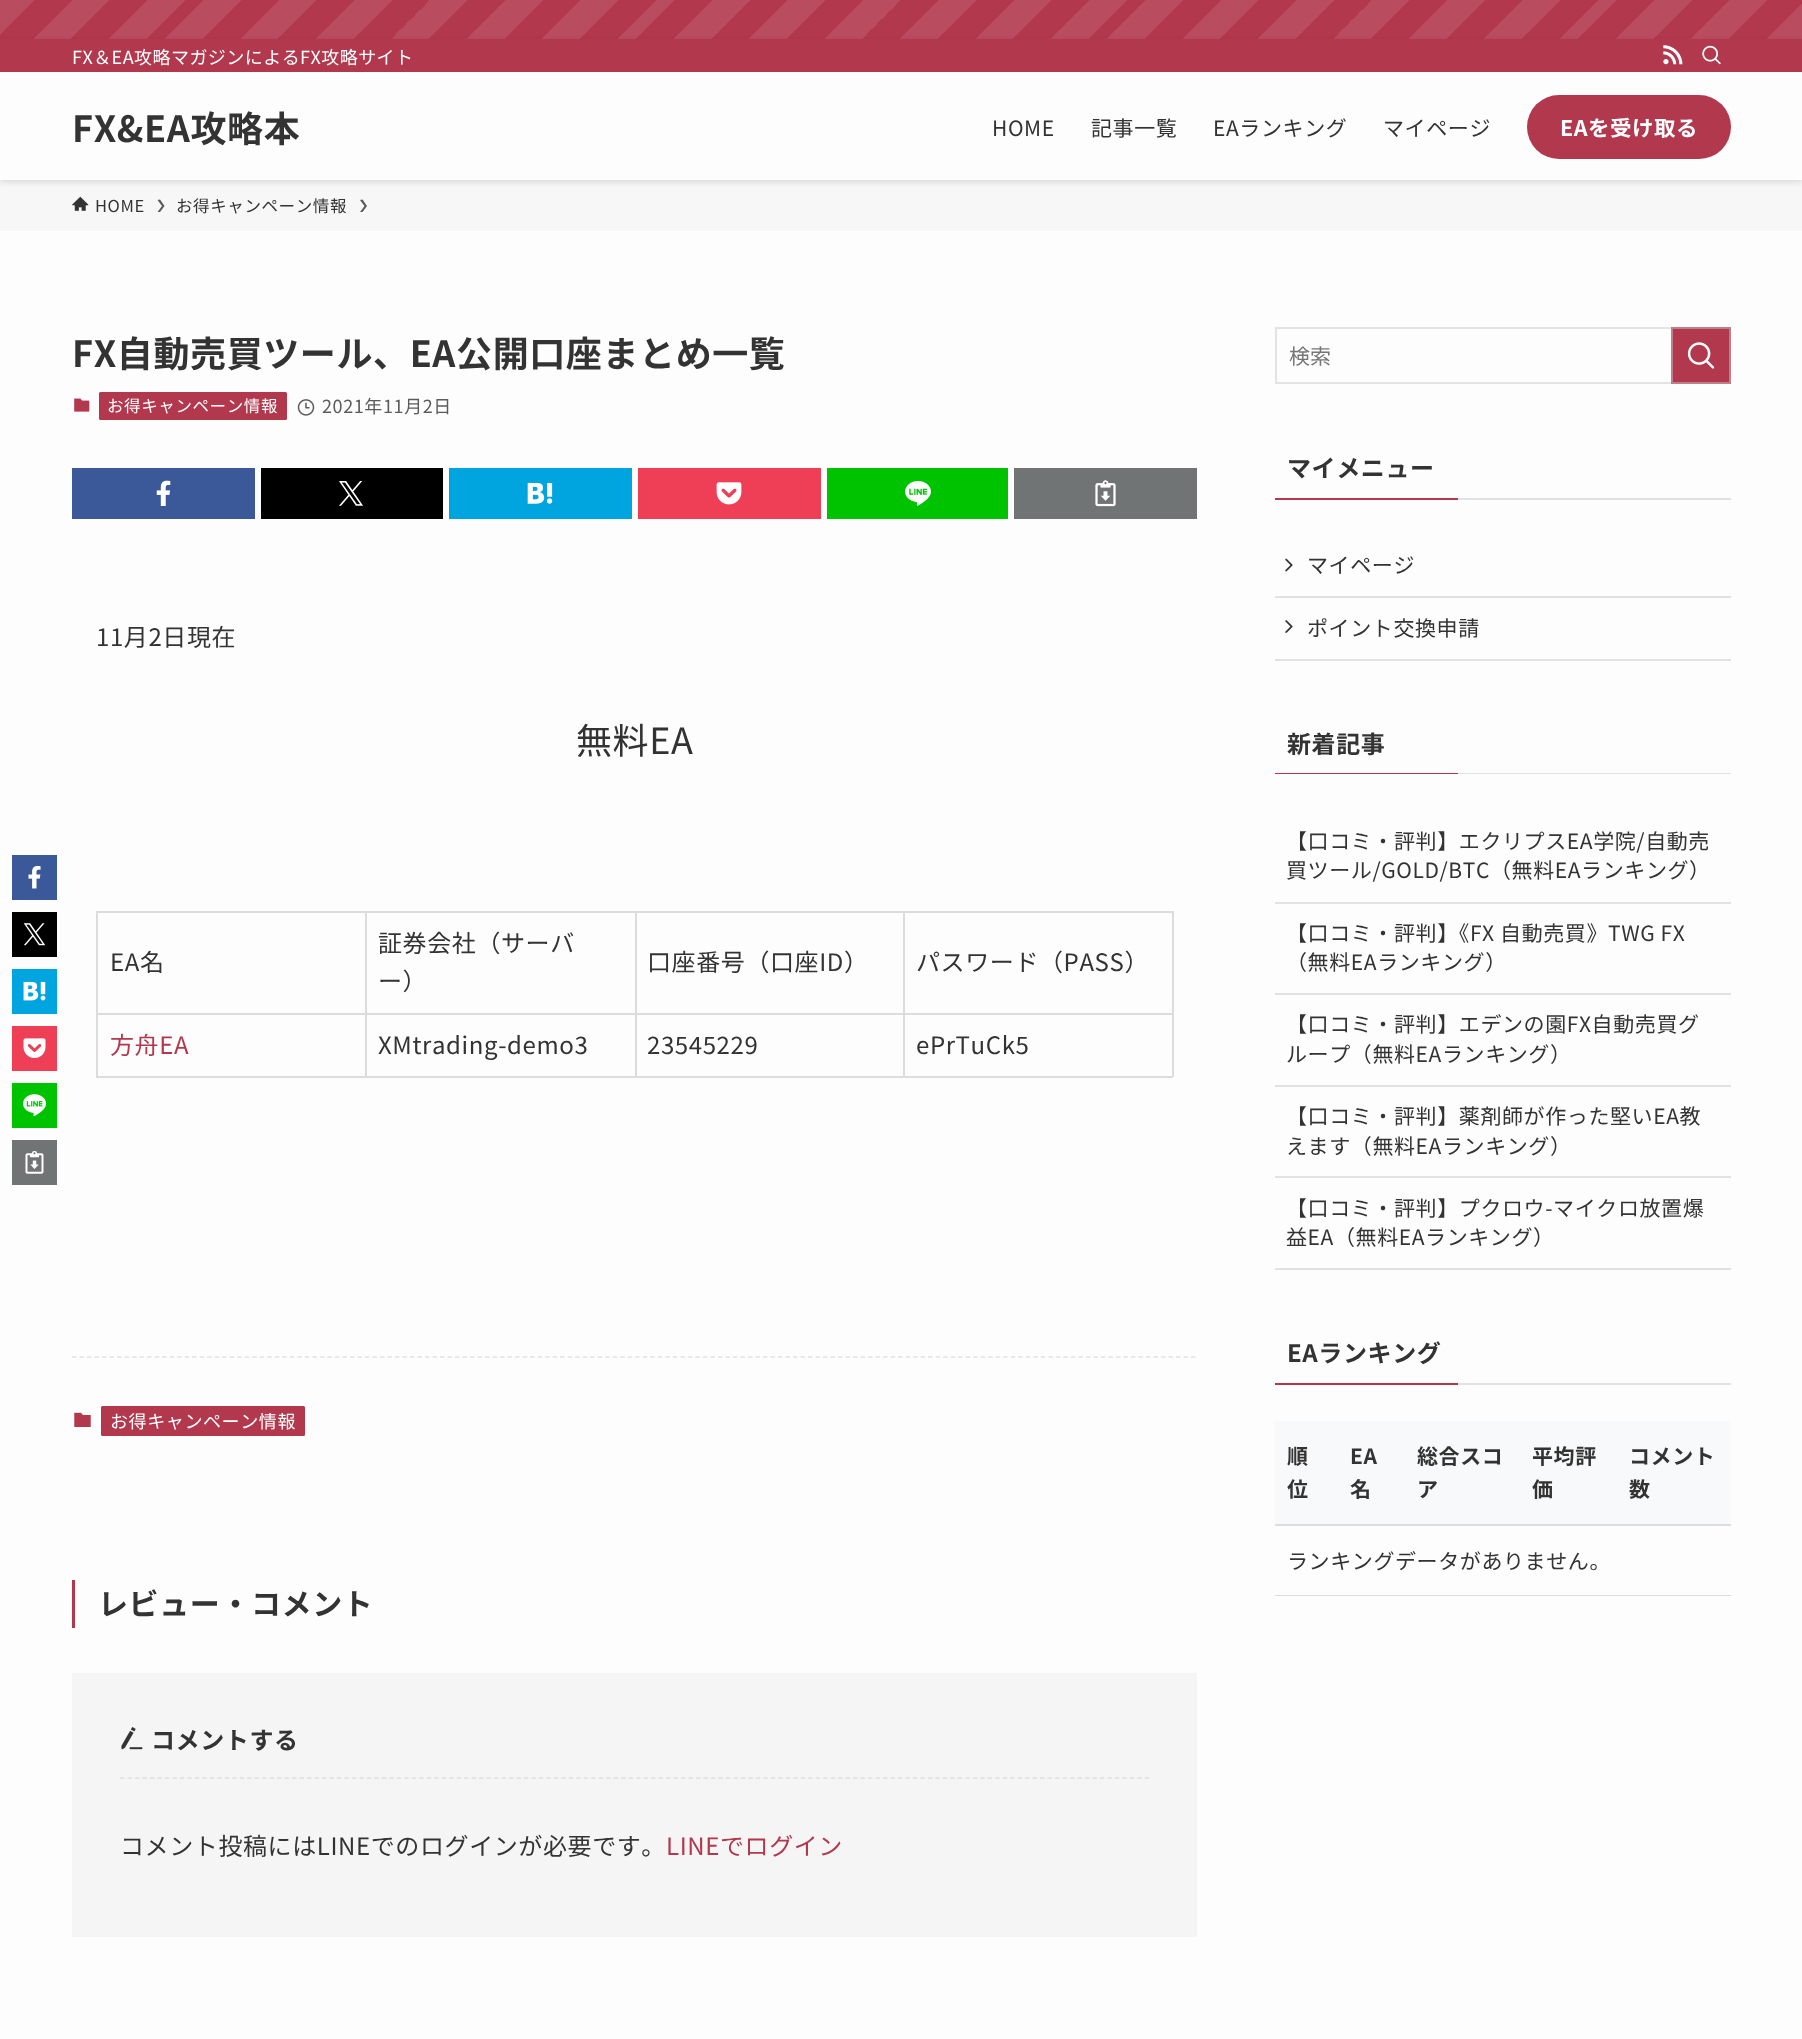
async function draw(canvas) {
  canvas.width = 1802;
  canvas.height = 2039;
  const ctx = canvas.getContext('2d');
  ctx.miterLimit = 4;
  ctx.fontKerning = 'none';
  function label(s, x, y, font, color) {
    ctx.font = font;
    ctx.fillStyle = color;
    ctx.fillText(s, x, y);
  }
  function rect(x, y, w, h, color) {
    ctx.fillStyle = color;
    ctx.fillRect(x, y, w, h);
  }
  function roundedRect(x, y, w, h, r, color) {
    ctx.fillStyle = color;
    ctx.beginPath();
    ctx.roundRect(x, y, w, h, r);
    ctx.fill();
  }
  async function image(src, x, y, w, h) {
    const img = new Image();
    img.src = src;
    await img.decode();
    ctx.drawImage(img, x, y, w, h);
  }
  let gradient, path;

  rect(0, 0, 1802, 2039, '#fdfdfd');
  gradient = ctx.createLinearGradient(1367, 476, 425, -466);
  gradient.addColorStop(0, '#ba4c60');
  gradient.addColorStop(0.01, '#ba4c60');
  gradient.addColorStop(0.01, '#b2384e');
  gradient.addColorStop(0.01, '#ba4c60');
  gradient.addColorStop(0.02, '#ba4c60');
  gradient.addColorStop(0.02, '#b2384e');
  gradient.addColorStop(0.03, '#b2384e');
  gradient.addColorStop(0.03, '#ba4c60');
  gradient.addColorStop(0.03, '#b2384e');
  gradient.addColorStop(0.04, '#b2384e');
  gradient.addColorStop(0.04, '#ba4c60');
  gradient.addColorStop(0.05, '#ba4c60');
  gradient.addColorStop(0.05, '#b2384e');
  gradient.addColorStop(0.05, '#ba4c60');
  gradient.addColorStop(0.06, '#ba4c60');
  gradient.addColorStop(0.06, '#b2384e');
  gradient.addColorStop(0.07, '#b2384e');
  gradient.addColorStop(0.07, '#ba4c60');
  gradient.addColorStop(0.07, '#b2384e');
  gradient.addColorStop(0.08, '#b2384e');
  gradient.addColorStop(0.08, '#ba4c60');
  gradient.addColorStop(0.09, '#ba4c60');
  gradient.addColorStop(0.09, '#b2384e');
  gradient.addColorStop(0.09, '#ba4c60');
  gradient.addColorStop(0.1, '#ba4c60');
  gradient.addColorStop(0.1, '#b2384e');
  gradient.addColorStop(0.11, '#b2384e');
  gradient.addColorStop(0.11, '#ba4c60');
  gradient.addColorStop(0.11, '#b2384e');
  gradient.addColorStop(0.12, '#b2384e');
  gradient.addColorStop(0.12, '#ba4c60');
  gradient.addColorStop(0.13, '#ba4c60');
  gradient.addColorStop(0.13, '#b2384e');
  gradient.addColorStop(0.14, '#b2384e');
  gradient.addColorStop(0.14, '#ba4c60');
  gradient.addColorStop(0.14, '#b2384e');
  gradient.addColorStop(0.15, '#b2384e');
  gradient.addColorStop(0.15, '#ba4c60');
  gradient.addColorStop(0.16, '#ba4c60');
  gradient.addColorStop(0.16, '#b2384e');
  gradient.addColorStop(0.16, '#ba4c60');
  gradient.addColorStop(0.17, '#ba4c60');
  gradient.addColorStop(0.17, '#b2384e');
  gradient.addColorStop(0.18, '#b2384e');
  gradient.addColorStop(0.18, '#ba4c60');
  gradient.addColorStop(0.18, '#b2384e');
  gradient.addColorStop(0.19, '#b2384e');
  gradient.addColorStop(0.19, '#ba4c60');
  gradient.addColorStop(0.2, '#ba4c60');
  gradient.addColorStop(0.2, '#b2384e');
  gradient.addColorStop(0.2, '#ba4c60');
  gradient.addColorStop(0.21, '#ba4c60');
  gradient.addColorStop(0.21, '#b2384e');
  gradient.addColorStop(0.22, '#b2384e');
  gradient.addColorStop(0.22, '#ba4c60');
  gradient.addColorStop(0.22, '#b2384e');
  gradient.addColorStop(0.23, '#b2384e');
  gradient.addColorStop(0.23, '#ba4c60');
  gradient.addColorStop(0.24, '#ba4c60');
  gradient.addColorStop(0.24, '#b2384e');
  gradient.addColorStop(0.24, '#ba4c60');
  gradient.addColorStop(0.25, '#ba4c60');
  gradient.addColorStop(0.25, '#b2384e');
  gradient.addColorStop(0.26, '#b2384e');
  gradient.addColorStop(0.26, '#ba4c60');
  gradient.addColorStop(0.26, '#b2384e');
  gradient.addColorStop(0.27, '#b2384e');
  gradient.addColorStop(0.27, '#ba4c60');
  gradient.addColorStop(0.28, '#ba4c60');
  gradient.addColorStop(0.28, '#b2384e');
  gradient.addColorStop(0.28, '#ba4c60');
  gradient.addColorStop(0.29, '#ba4c60');
  gradient.addColorStop(0.29, '#b2384e');
  gradient.addColorStop(0.3, '#b2384e');
  gradient.addColorStop(0.3, '#ba4c60');
  gradient.addColorStop(0.3, '#b2384e');
  gradient.addColorStop(0.31, '#b2384e');
  gradient.addColorStop(0.31, '#ba4c60');
  gradient.addColorStop(0.32, '#ba4c60');
  gradient.addColorStop(0.32, '#b2384e');
  gradient.addColorStop(0.32, '#ba4c60');
  gradient.addColorStop(0.33, '#ba4c60');
  gradient.addColorStop(0.33, '#b2384e');
  gradient.addColorStop(0.34, '#b2384e');
  gradient.addColorStop(0.34, '#ba4c60');
  gradient.addColorStop(0.34, '#b2384e');
  gradient.addColorStop(0.35, '#b2384e');
  gradient.addColorStop(0.35, '#ba4c60');
  gradient.addColorStop(0.36, '#ba4c60');
  gradient.addColorStop(0.36, '#b2384e');
  gradient.addColorStop(0.36, '#ba4c60');
  gradient.addColorStop(0.37, '#ba4c60');
  gradient.addColorStop(0.37, '#b2384e');
  gradient.addColorStop(0.38, '#b2384e');
  gradient.addColorStop(0.38, '#ba4c60');
  gradient.addColorStop(0.39, '#ba4c60');
  gradient.addColorStop(0.39, '#b2384e');
  gradient.addColorStop(0.39, '#ba4c60');
  gradient.addColorStop(0.4, '#ba4c60');
  gradient.addColorStop(0.4, '#b2384e');
  gradient.addColorStop(0.41, '#b2384e');
  gradient.addColorStop(0.41, '#ba4c60');
  gradient.addColorStop(0.41, '#b2384e');
  gradient.addColorStop(0.42, '#b2384e');
  gradient.addColorStop(0.42, '#ba4c60');
  gradient.addColorStop(0.43, '#ba4c60');
  gradient.addColorStop(0.43, '#b2384e');
  gradient.addColorStop(0.43, '#ba4c60');
  gradient.addColorStop(0.44, '#ba4c60');
  gradient.addColorStop(0.44, '#b2384e');
  gradient.addColorStop(0.45, '#b2384e');
  gradient.addColorStop(0.45, '#ba4c60');
  gradient.addColorStop(0.45, '#b2384e');
  gradient.addColorStop(0.46, '#b2384e');
  gradient.addColorStop(0.46, '#ba4c60');
  gradient.addColorStop(0.47, '#ba4c60');
  gradient.addColorStop(0.47, '#b2384e');
  gradient.addColorStop(0.47, '#ba4c60');
  gradient.addColorStop(0.48, '#ba4c60');
  gradient.addColorStop(0.48, '#b2384e');
  gradient.addColorStop(0.49, '#b2384e');
  gradient.addColorStop(0.49, '#ba4c60');
  gradient.addColorStop(0.49, '#b2384e');
  gradient.addColorStop(0.5, '#b2384e');
  gradient.addColorStop(0.5, '#ba4c60');
  gradient.addColorStop(0.51, '#ba4c60');
  gradient.addColorStop(0.51, '#b2384e');
  gradient.addColorStop(0.51, '#ba4c60');
  gradient.addColorStop(0.52, '#ba4c60');
  gradient.addColorStop(0.52, '#b2384e');
  gradient.addColorStop(0.53, '#b2384e');
  gradient.addColorStop(0.53, '#ba4c60');
  gradient.addColorStop(0.53, '#b2384e');
  gradient.addColorStop(0.54, '#b2384e');
  gradient.addColorStop(0.54, '#ba4c60');
  gradient.addColorStop(0.55, '#ba4c60');
  gradient.addColorStop(0.55, '#b2384e');
  gradient.addColorStop(0.55, '#ba4c60');
  gradient.addColorStop(0.56, '#ba4c60');
  gradient.addColorStop(0.56, '#b2384e');
  gradient.addColorStop(0.57, '#b2384e');
  gradient.addColorStop(0.57, '#ba4c60');
  gradient.addColorStop(0.57, '#b2384e');
  gradient.addColorStop(0.58, '#b2384e');
  gradient.addColorStop(0.58, '#ba4c60');
  gradient.addColorStop(0.59, '#ba4c60');
  gradient.addColorStop(0.59, '#b2384e');
  gradient.addColorStop(0.59, '#ba4c60');
  gradient.addColorStop(0.6, '#ba4c60');
  gradient.addColorStop(0.6, '#b2384e');
  gradient.addColorStop(0.61, '#b2384e');
  gradient.addColorStop(0.61, '#ba4c60');
  gradient.addColorStop(0.61, '#b2384e');
  gradient.addColorStop(0.62, '#b2384e');
  gradient.addColorStop(0.62, '#ba4c60');
  gradient.addColorStop(0.63, '#ba4c60');
  gradient.addColorStop(0.63, '#b2384e');
  gradient.addColorStop(0.64, '#b2384e');
  gradient.addColorStop(0.64, '#ba4c60');
  gradient.addColorStop(0.64, '#b2384e');
  gradient.addColorStop(0.65, '#b2384e');
  gradient.addColorStop(0.65, '#ba4c60');
  gradient.addColorStop(0.66, '#ba4c60');
  gradient.addColorStop(0.66, '#b2384e');
  gradient.addColorStop(0.66, '#ba4c60');
  gradient.addColorStop(0.67, '#ba4c60');
  gradient.addColorStop(0.67, '#b2384e');
  gradient.addColorStop(0.68, '#b2384e');
  gradient.addColorStop(0.68, '#ba4c60');
  gradient.addColorStop(0.68, '#b2384e');
  gradient.addColorStop(0.69, '#b2384e');
  gradient.addColorStop(0.69, '#ba4c60');
  gradient.addColorStop(0.7, '#ba4c60');
  gradient.addColorStop(0.7, '#b2384e');
  gradient.addColorStop(0.7, '#ba4c60');
  gradient.addColorStop(0.71, '#ba4c60');
  gradient.addColorStop(0.71, '#b2384e');
  gradient.addColorStop(0.72, '#b2384e');
  gradient.addColorStop(0.72, '#ba4c60');
  gradient.addColorStop(0.72, '#b2384e');
  gradient.addColorStop(0.73, '#b2384e');
  gradient.addColorStop(0.73, '#ba4c60');
  gradient.addColorStop(0.74, '#ba4c60');
  gradient.addColorStop(0.74, '#b2384e');
  gradient.addColorStop(0.74, '#ba4c60');
  gradient.addColorStop(0.75, '#ba4c60');
  gradient.addColorStop(0.75, '#b2384e');
  gradient.addColorStop(0.76, '#b2384e');
  gradient.addColorStop(0.76, '#ba4c60');
  gradient.addColorStop(0.76, '#b2384e');
  gradient.addColorStop(0.77, '#b2384e');
  gradient.addColorStop(0.77, '#ba4c60');
  gradient.addColorStop(0.78, '#ba4c60');
  gradient.addColorStop(0.78, '#b2384e');
  gradient.addColorStop(0.78, '#ba4c60');
  gradient.addColorStop(0.79, '#ba4c60');
  gradient.addColorStop(0.79, '#b2384e');
  gradient.addColorStop(0.8, '#b2384e');
  gradient.addColorStop(0.8, '#ba4c60');
  gradient.addColorStop(0.8, '#b2384e');
  gradient.addColorStop(0.81, '#b2384e');
  gradient.addColorStop(0.81, '#ba4c60');
  gradient.addColorStop(0.82, '#ba4c60');
  gradient.addColorStop(0.82, '#b2384e');
  gradient.addColorStop(0.82, '#ba4c60');
  gradient.addColorStop(0.83, '#ba4c60');
  gradient.addColorStop(0.83, '#b2384e');
  gradient.addColorStop(0.84, '#b2384e');
  gradient.addColorStop(0.84, '#ba4c60');
  gradient.addColorStop(0.84, '#b2384e');
  gradient.addColorStop(0.85, '#b2384e');
  gradient.addColorStop(0.85, '#ba4c60');
  gradient.addColorStop(0.86, '#ba4c60');
  gradient.addColorStop(0.86, '#b2384e');
  gradient.addColorStop(0.86, '#ba4c60');
  gradient.addColorStop(0.87, '#ba4c60');
  gradient.addColorStop(0.87, '#b2384e');
  gradient.addColorStop(0.88, '#b2384e');
  gradient.addColorStop(0.88, '#ba4c60');
  gradient.addColorStop(0.89, '#ba4c60');
  gradient.addColorStop(0.89, '#b2384e');
  gradient.addColorStop(0.89, '#ba4c60');
  gradient.addColorStop(0.9, '#ba4c60');
  gradient.addColorStop(0.9, '#b2384e');
  gradient.addColorStop(0.91, '#b2384e');
  gradient.addColorStop(0.91, '#ba4c60');
  gradient.addColorStop(0.91, '#b2384e');
  gradient.addColorStop(0.92, '#b2384e');
  gradient.addColorStop(0.92, '#ba4c60');
  gradient.addColorStop(0.93, '#ba4c60');
  gradient.addColorStop(0.93, '#b2384e');
  gradient.addColorStop(0.93, '#ba4c60');
  gradient.addColorStop(0.94, '#ba4c60');
  gradient.addColorStop(0.94, '#b2384e');
  gradient.addColorStop(0.95, '#b2384e');
  gradient.addColorStop(0.95, '#ba4c60');
  gradient.addColorStop(0.95, '#b2384e');
  gradient.addColorStop(0.96, '#b2384e');
  gradient.addColorStop(0.96, '#ba4c60');
  gradient.addColorStop(0.97, '#ba4c60');
  gradient.addColorStop(0.97, '#b2384e');
  gradient.addColorStop(0.97, '#ba4c60');
  gradient.addColorStop(0.98, '#ba4c60');
  gradient.addColorStop(0.98, '#b2384e');
  gradient.addColorStop(0.99, '#b2384e');
  gradient.addColorStop(0.99, '#ba4c60');
  gradient.addColorStop(0.99, '#b2384e');
  gradient.addColorStop(1, '#b2384e');
  ctx.fillStyle = gradient;
  ctx.fillRect(0, 0, 1802, 39);
  rect(0, 180, 1802, 51, '#f7f7f7');
  ctx.save();
  path = new Path2D('M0 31H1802V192H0ZM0 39H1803V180H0Z');
  ctx.clip(path, 'evenodd');
  ctx.fillStyle = '#0000001f';
  ctx.filter = 'blur(3px)';
  ctx.beginPath();
  ctx.rect(0, 41, 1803, 141);
  ctx.fill();
  ctx.filter = 'none';
  ctx.restore();
  rect(0, 39, 1802, 33, '#b2384e');
  ctx.letterSpacing = '0.45px';
  label('FX＆EA攻略マガジンによるFX攻略サイト', 72, 64, '18px Noto Sans JP', '#fff');
  await image('assets/img1.png', 1663, 45, 20, 20);
  await image('assets/img2.png', 1702, 45, 19, 20);
  ctx.letterSpacing = '0.6px';
  label('FX&EA攻略本', 72, 142, 'bold 36px Noto Sans JP', '#333');
  label('HOME', 992, 136, '21px Noto Sans JP', '#333');
  label('記事一覧', 1091, 136, '21px Noto Sans JP', '#333');
  label('EAランキング', 1213, 136, '21px Noto Sans JP', '#333');
  label('マイページ', 1383, 136, '21px Noto Sans JP', '#333');
  roundedRect(1527, 95, 204, 64, 32, '#b2384e');
  ctx.letterSpacing = '0.5px';
  label('EAを受け取る', 1560, 136, 'bold 21.5px Noto Sans JP', '#fff');
  await image('assets/img3.png', 72, 196, 17, 15);
  ctx.letterSpacing = '0.6px';
  label('HOME', 95, 212, '16.5px Noto Sans JP', '#333');
  ctx.fillStyle = '#5a5a5a';
  path = new Path2D('M160 199.5L157.5 200L162 206L157.5 212H160L164.5 206Z');
  ctx.fill(path);
  label('お得キャンペーン情報', 176, 212, '16.5px Noto Sans JP', '#333');
  ctx.fillStyle = '#5a5a5a';
  path = new Path2D('M362.5 199.5L360 200L364.5 206L360 212H362.5L367 206Z');
  ctx.fill(path);
  label('FX自動売買ツール、EA公開口座まとめ一覧', 72, 367, 'bold 36px Noto Sans JP', '#333');
  await image('assets/img4.png', 74, 398, 16, 14);
  roundedRect(99, 392, 188, 28, 1.5, '#b2384e');
  label('お得キャンペーン情報', 107, 412, '16.5px Noto Sans JP', '#fff');
  await image('assets/img5.png', 297, 399, 18, 17);
  label('2021年11月2日', 322, 413, '18px Noto Sans JP', '#5b5b5b');
  rect(72, 468, 183, 51, '#3b5998');
  await image('assets/img6.png', 156, 480, 15, 26);
  rect(261, 468, 182, 51, '#000');
  await image('assets/img7.png', 339, 481, 24, 25);
  rect(449, 468, 183, 51, '#00a4de');
  await image('assets/img8.png', 527, 482, 26, 22);
  rect(638, 468, 183, 51, '#ef3f56');
  await image('assets/img9.png', 716, 482, 26, 23);
  rect(827, 468, 181, 51, '#00c300');
  await image('assets/img10.png', 905, 481, 26, 25);
  rect(1014, 468, 183, 51, '#717475');
  await image('assets/img11.png', 1095, 480, 21, 27);
  rect(12, 855, 45, 45, '#3b5998');
  await image('assets/img12.png', 28, 865, 13, 24);
  rect(12, 912, 45, 45, '#000');
  await image('assets/img13.png', 23, 923, 23, 23);
  rect(12, 969, 45, 45, '#00a4de');
  await image('assets/img14.png', 23, 981, 23, 20);
  rect(12, 1026, 45, 45, '#ef3f56');
  await image('assets/img15.png', 23, 1038, 23, 20);
  rect(12, 1083, 45, 45, '#00c300');
  await image('assets/img16.png', 23, 1094, 23, 23);
  rect(12, 1140, 45, 45, '#717475');
  await image('assets/img17.png', 25, 1151, 19, 23);
  label('11月2日現在', 96, 646, '24px Noto Sans JP', '#333');
  label('無料EA', 576, 754, '36px Noto Sans JP', '#333');
  rect(903, 911, 270, 2, '#dcdcdc');
  rect(903, 1013, 270, 2, '#dcdcdc');
  rect(1172, 1013, 2, 64, '#dcdcdc');
  rect(903, 1076, 270, 2, '#dcdcdc');
  rect(903, 1013, 2, 64, '#dcdcdc');
  rect(635, 1013, 270, 2, '#dcdcdc');
  rect(903, 911, 2, 103, '#dcdcdc');
  rect(635, 911, 270, 2, '#dcdcdc');
  rect(635, 1076, 270, 2, '#dcdcdc');
  rect(635, 1013, 2, 64, '#dcdcdc');
  rect(365, 1013, 271, 2, '#dcdcdc');
  rect(635, 911, 2, 103, '#dcdcdc');
  rect(365, 911, 271, 2, '#dcdcdc');
  rect(365, 1076, 271, 2, '#dcdcdc');
  rect(365, 1013, 2, 64, '#dcdcdc');
  rect(96, 1013, 270, 2, '#dcdcdc');
  rect(365, 911, 2, 103, '#dcdcdc');
  rect(96, 911, 270, 2, '#dcdcdc');
  rect(96, 1076, 270, 2, '#dcdcdc');
  rect(96, 1013, 2, 64, '#dcdcdc');
  rect(96, 911, 2, 103, '#dcdcdc');
  label('EA名', 110, 971, '24px Noto Sans JP', '#333');
  label('証券会社（サーバ', 378, 952, '24px Noto Sans JP', '#333');
  label('ー）', 378, 990, '24px Noto Sans JP', '#333');
  label('口座番号（口座ID）', 647, 971, '24px Noto Sans JP', '#333');
  rect(1172, 911, 2, 103, '#dcdcdc');
  label('パスワード（PASS）', 916, 971, '24px Noto Sans JP', '#333');
  label('方舟EA', 110, 1054, '24px Noto Sans JP', '#b2384e');
  label('XMtrading-demo3', 378, 1054, '24px Noto Sans JP', '#333');
  label('23545229', 647, 1054, '24px Noto Sans JP', '#333');
  label('ePrTuCk5', 916, 1054, '24px Noto Sans JP', '#333');
  path = new Path2D('M72 1357H1197');
  ctx.strokeStyle = '#e2e2e2';
  ctx.lineWidth = 1.5;
  ctx.setLineDash([4.5, 3.01]);
  ctx.stroke(path);
  await image('assets/img18.png', 74, 1412, 17, 15);
  roundedRect(101, 1406, 204, 30, 1.5, '#b2384e');
  label('お得キャンペーン情報', 110, 1428, '18px Noto Sans JP', '#fff');
  rect(72, 1580, 3, 48, '#b2384e');
  label('レビュー・コメント', 98, 1615, 'bold 30px Noto Sans JP', '#333');
  rect(72, 1673, 1125, 264, '#f5f5f5');
  path = new Path2D('M120 1778H1149');
  ctx.strokeStyle = '#dedede';
  ctx.setLineDash([4.5, 2.98]);
  ctx.stroke(path);
  await image('assets/img19.png', 121, 1727, 22, 23);
  label('コメントする', 151, 1749, 'bold 24px Noto Sans JP', '#333');
  label('コメント投稿にはLINEでのログインが必要です。', 120, 1855, '24px Noto Sans JP', '#333');
  label('LINEでログイン', 666, 1855, '24px Noto Sans JP', '#b2384e');
  ctx.strokeStyle = '#e3e3e3';
  ctx.lineWidth = 2;
  ctx.setLineDash([]);
  ctx.strokeRect(1276, 328, 454, 55);
  ctx.letterSpacing = '0px';
  label('検索', 1289, 364, '21px Noto Sans JP', '#757575');
  ctx.fillStyle = '#b2384e';
  ctx.beginPath();
  ctx.rect(1672, 328, 58, 55);
  ctx.fill();
  ctx.strokeStyle = '#bd808b';
  ctx.stroke();
  await image('assets/img20.png', 1687, 342, 28, 27);
  ctx.letterSpacing = '0.6px';
  label('マイメニュー', 1287, 477, 'bold 24px Noto Sans JP', '#333');
  rect(1275, 498, 183, 2, '#b2384e');
  rect(1458, 498, 273, 2, '#e2e2e2');
  rect(1275, 596, 456, 2, '#e2e2e2');
  await image('assets/img21.png', 1285, 558, 8, 14);
  label('マイページ', 1307, 573, '21px Noto Sans JP', '#333');
  rect(1275, 659, 456, 2, '#e2e2e2');
  await image('assets/img22.png', 1285, 620, 8, 13);
  label('ポイント交換申請', 1307, 636, '21px Noto Sans JP', '#333');
  label('新着記事', 1287, 753, 'bold 24px Noto Sans JP', '#333');
  rect(1275, 773, 183, 1, '#b2384e');
  rect(1458, 773, 273, 1, '#e2e2e2');
  rect(1275, 902, 456, 2, '#e2e2e2');
  label('【口コミ・評判】エクリプスEA学院/自動売', 1286, 849, '21px Noto Sans JP', '#333');
  label('買ツール/GOLD/BTC（無料EAランキング）', 1286, 878, '21px Noto Sans JP', '#333');
  rect(1275, 993, 456, 2, '#e2e2e2');
  label('【口コミ・評判】《FX 自動売買》TWG FX', 1286, 941, '21px Noto Sans JP', '#333');
  label('（無料EAランキング）', 1286, 970, '21px Noto Sans JP', '#333');
  rect(1275, 1085, 456, 2, '#e2e2e2');
  label('【口コミ・評判】エデンの園FX自動売買グ', 1286, 1032, '21px Noto Sans JP', '#333');
  label('ループ（無料EAランキング）', 1286, 1062, '21px Noto Sans JP', '#333');
  rect(1275, 1176, 456, 2, '#e2e2e2');
  label('【口コミ・評判】薬剤師が作った堅いEA教', 1286, 1124, '21px Noto Sans JP', '#333');
  label('えます（無料EAランキング）', 1286, 1154, '21px Noto Sans JP', '#333');
  rect(1275, 1268, 456, 2, '#e2e2e2');
  label('【口コミ・評判】プクロウ-マイクロ放置爆', 1286, 1216, '21px Noto Sans JP', '#333');
  label('益EA（無料EAランキング）', 1286, 1245, '21px Noto Sans JP', '#333');
  label('EAランキング', 1287, 1362, 'bold 24px Noto Sans JP', '#333');
  rect(1275, 1383, 183, 2, '#b2384e');
  rect(1458, 1383, 273, 2, '#e2e2e2');
  rect(1275, 1421, 456, 103, '#f8f9fa');
  label('順', 1287, 1464, 'bold 21px Noto Sans JP', '#333');
  label('位', 1287, 1497, 'bold 21px Noto Sans JP', '#333');
  label('EA', 1350, 1464, 'bold 21px Noto Sans JP', '#333');
  label('名', 1350, 1497, 'bold 21px Noto Sans JP', '#333');
  label('総合スコ', 1417, 1464, 'bold 21px Noto Sans JP', '#333');
  label('ア', 1417, 1497, 'bold 21px Noto Sans JP', '#333');
  label('平均評', 1532, 1464, 'bold 21px Noto Sans JP', '#333');
  label('価', 1532, 1497, 'bold 21px Noto Sans JP', '#333');
  rect(1275, 1524, 456, 2, '#ddd');
  label('コメント', 1629, 1464, 'bold 21px Noto Sans JP', '#333');
  label('数', 1629, 1497, 'bold 21px Noto Sans JP', '#333');
  rect(1275, 1595, 456, 1, '#ddd');
  label('ランキングデータがありません。', 1287, 1569, '21px Noto Sans JP', '#333');
}

draw(document.querySelector('canvas'));
